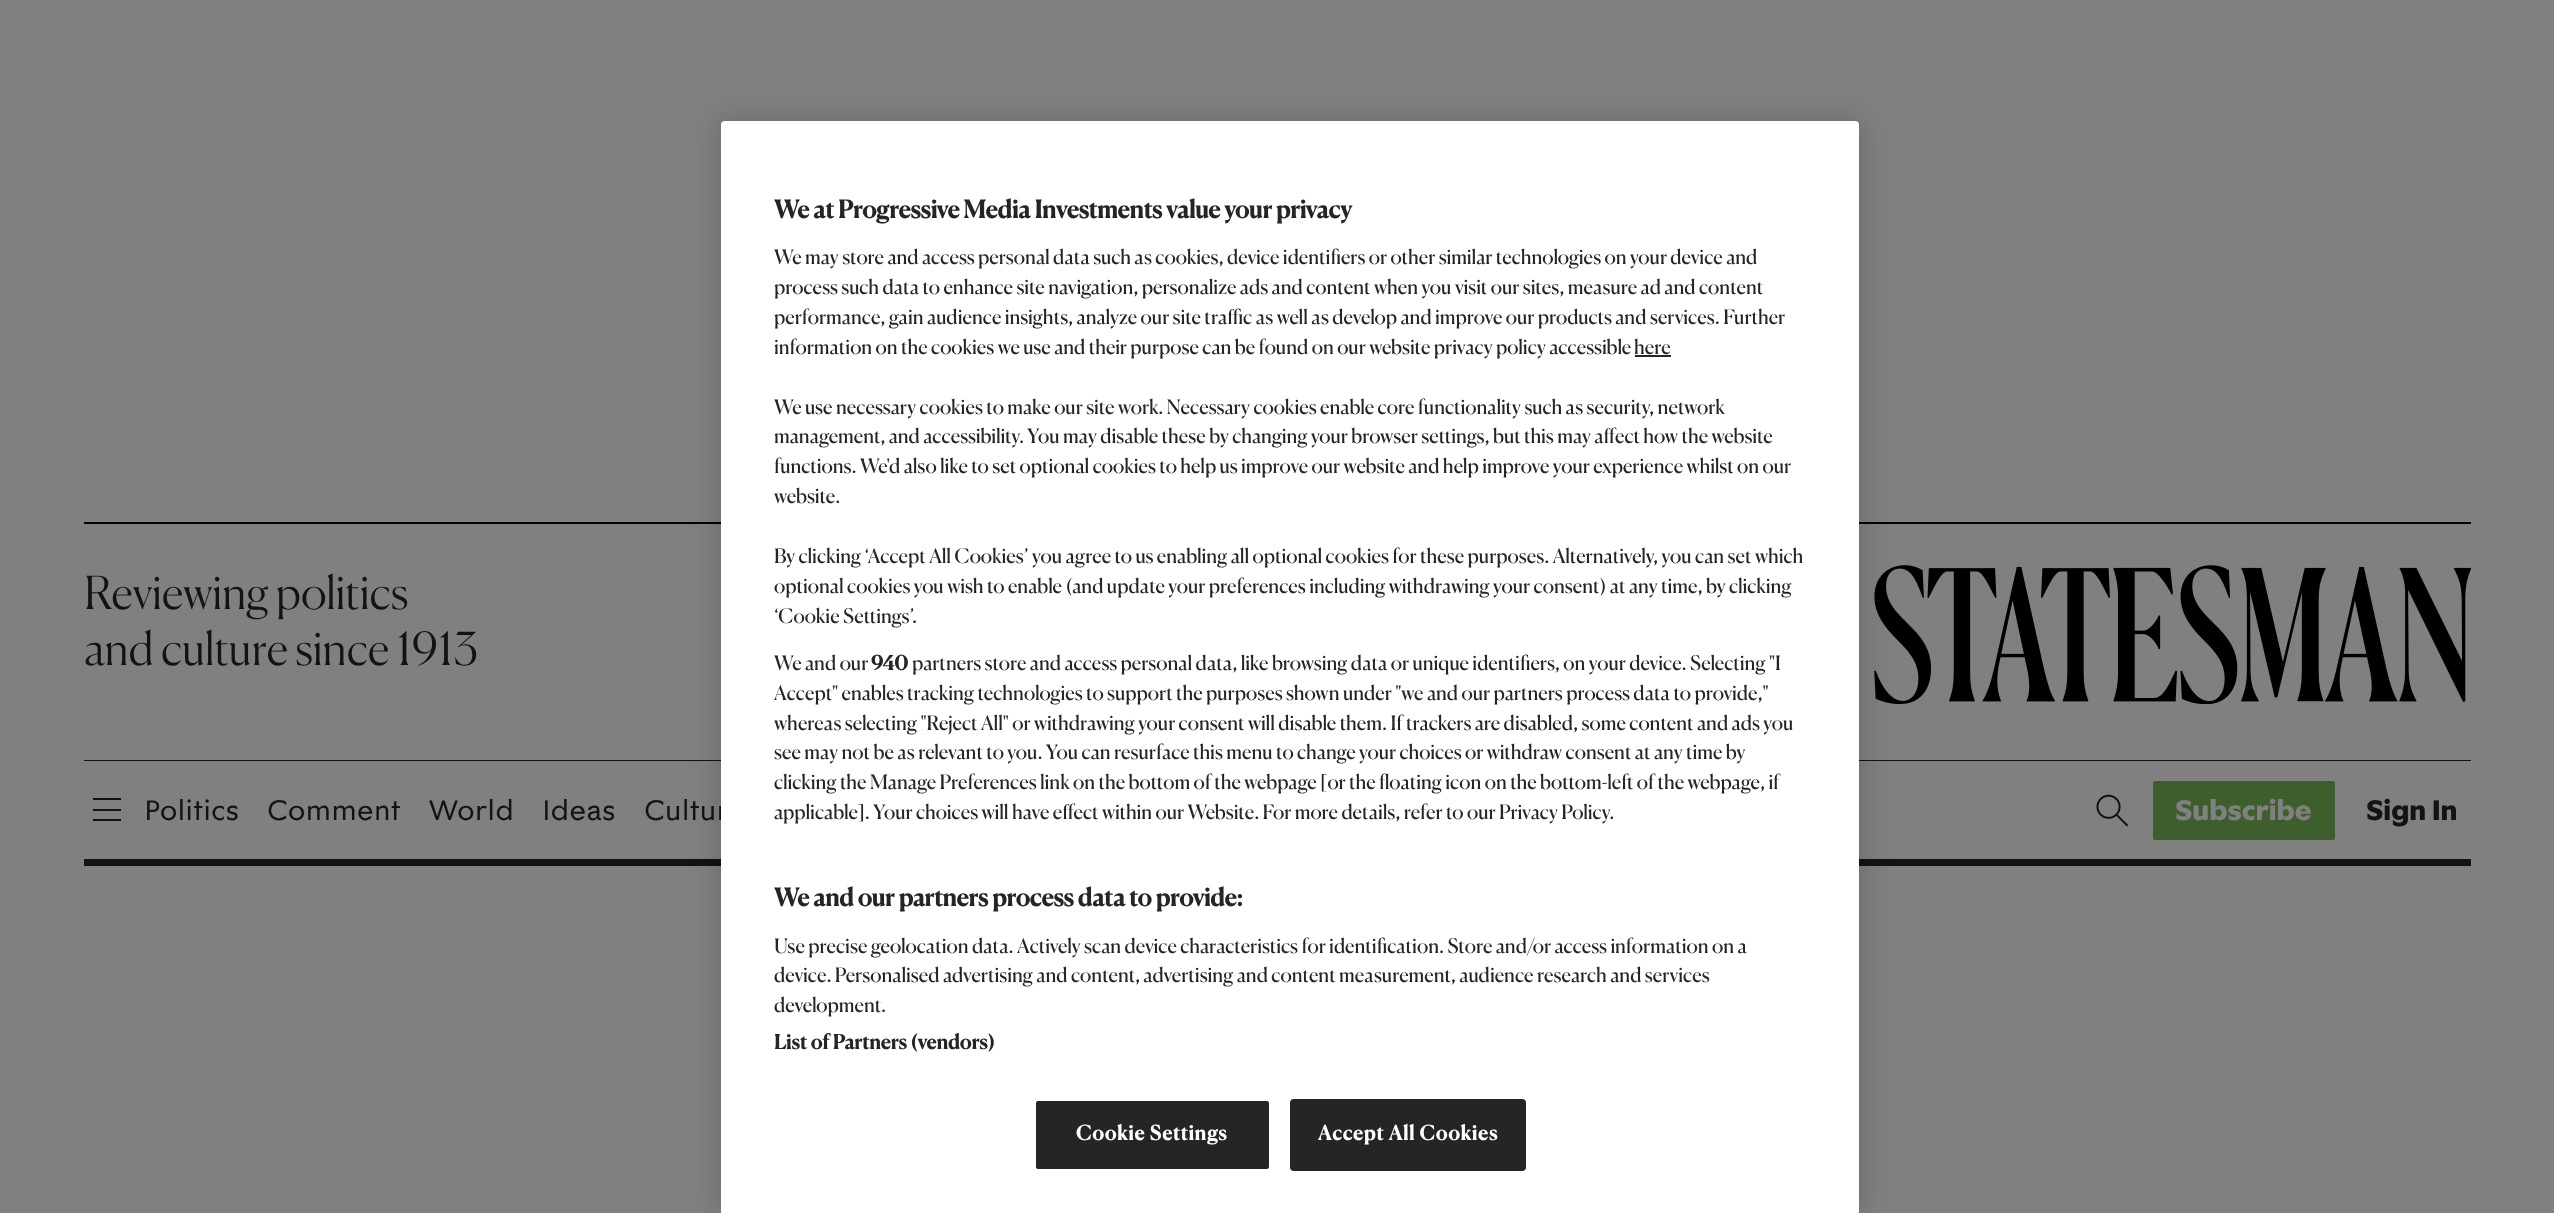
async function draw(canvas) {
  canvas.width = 2554;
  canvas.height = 1213;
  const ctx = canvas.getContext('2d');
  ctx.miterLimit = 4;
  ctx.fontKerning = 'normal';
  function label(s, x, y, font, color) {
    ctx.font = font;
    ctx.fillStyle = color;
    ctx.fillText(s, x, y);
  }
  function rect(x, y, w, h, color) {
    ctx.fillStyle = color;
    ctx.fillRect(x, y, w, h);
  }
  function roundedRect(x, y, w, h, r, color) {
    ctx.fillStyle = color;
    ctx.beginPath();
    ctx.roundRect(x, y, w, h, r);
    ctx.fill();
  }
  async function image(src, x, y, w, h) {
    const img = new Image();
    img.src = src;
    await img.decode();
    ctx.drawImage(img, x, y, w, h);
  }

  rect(0, 0, 2554, 1213, '#808080');
  rect(84, 522, 2387, 2, '#000');
  rect(84, 760, 2387, 1, '#131312');
  await image('assets/img1.png', 1874, 565, 597, 139);
  rect(84, 859, 2387, 7, '#131312');
  ctx.fillStyle = '#00000033';
  ctx.filter = 'blur(16px)';
  ctx.beginPath();
  ctx.roundRect(721, 121, 1138, 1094, 4);
  ctx.fill();
  ctx.filter = 'none';
  label('Cultur', 644, 820, '28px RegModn', '#131312');
  roundedRect(721, 121, 1138, 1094, 4, '#fff');
  label('We at Progressive Media Investments value your privacy', 774, 218, 'bold 24.5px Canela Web', '#252524');
  label('We may store and access personal data such as cookies, device identifiers or other similar technologies on your device and', 774, 264, '19.92px Canela Web', '#252524');
  label('process such data to enhance site navigation, personalize ads and content when you visit our sites, measure ad and content', 774, 294, '19.92px Canela Web', '#252524');
  label('performance, gain audience insights, analyze our site traffic as well as develop and improve our products and services. Further', 774, 324, '19.92px Canela Web', '#252524');
  label('information on the cookies we use and their purpose can be found on our website privacy policy accessible', 774, 354, '19.92px Canela Web', '#252524');
  label('here', 1634, 354, '19.92px Canela Web', '#252524');
  rect(1635, 355, 36, 2, '#252524');
  label('We use necessary cookies to make our site work. Necessary cookies enable core functionality such as security, network', 774, 414, '19.92px Canela Web', '#252524');
  label('management, and accessibility. You may disable these by changing your browser settings, but this may affect how the website', 774, 443, '19.92px Canela Web', '#252524');
  label('functions. We\'d also like to set optional cookies to help us improve our website and help improve your experience whilst on our', 774, 473, '19.92px Canela Web', '#252524');
  label('website.', 774, 503, '19.92px Canela Web', '#252524');
  label('By clicking ‘Accept All Cookies’ you agree to us enabling all optional cookies for these purposes. Alternatively, you can set which', 774, 563, '19.92px Canela Web', '#252524');
  label('optional cookies you wish to enable (and update your preferences including withdrawing your consent) at any time, by clicking', 774, 593, '19.92px Canela Web', '#252524');
  label('‘Cookie Settings’.', 774, 623, '19.92px Canela Web', '#252524');
  label('We and our', 774, 670, '19.92px Canela Web', '#252524');
  label('940', 871, 670, 'bold 19.92px Canela Web', '#252524');
  label('partners store and access personal data, like browsing data or unique identifiers, on your device. Selecting "I', 912, 670, '19.92px Canela Web', '#252524');
  label('Accept" enables tracking technologies to support the purposes shown under "we and our partners process data to provide,"', 774, 700, '19.92px Canela Web', '#252524');
  label('whereas selecting "Reject All" or withdrawing your consent will disable them. If trackers are disabled, some content and ads you', 774, 730, '19.92px Canela Web', '#252524');
  label('see may not be as relevant to you. You can resurface this menu to change your choices or withdraw consent at any time by', 774, 759, '19.92px Canela Web', '#252524');
  label('clicking the Manage Preferences link on the bottom of the webpage [or the floating icon on the bottom-left of the webpage, if', 774, 789, '19.92px Canela Web', '#252524');
  label('applicable]. Your choices will have effect within our Website. For more details, refer to our Privacy Policy.', 774, 819, '19.92px Canela Web', '#252524');
  label('We and our partners process data to provide:', 774, 906, 'bold 24.5px Canela Web', '#252524');
  label('Use precise geolocation data. Actively scan device characteristics for identification. Store and/or access information on a', 774, 953, '19.92px Canela Web', '#252524');
  label('device. Personalised advertising and content, advertising and content measurement, audience research and services', 774, 982, '19.92px Canela Web', '#252524');
  label('development.', 774, 1012, '19.92px Canela Web', '#252524');
  ctx.letterSpacing = '0.2px';
  label('List of Partners (vendors)', 774, 1049, 'bold 19.92px Canela Web', '#252524');
  ctx.beginPath();
  ctx.roundRect(1035, 1100, 235, 70, 3);
  ctx.fill();
  ctx.strokeStyle = '#fff';
  ctx.lineWidth = 2;
  ctx.stroke();
  ctx.letterSpacing = '1px';
  label('Cookie Settings', 1076, 1140, 'bold 19.92px Canela Web', '#fff');
  ctx.fillStyle = '#252524';
  ctx.beginPath();
  ctx.roundRect(1291, 1100, 234, 70, 3);
  ctx.fill();
  ctx.strokeStyle = '#252524';
  ctx.stroke();
  label('Accept All Cookies', 1318, 1140, 'bold 19.92px Canela Web', '#fff');
  ctx.letterSpacing = '0px';
  label('Reviewing politics', 84, 609, '300 45.5px Canela Web', '#131312');
  label('and culture since 1913', 84, 665, '300 45.5px Canela Web', '#131312');
  rect(93, 798, 28, 2, '#131312');
  rect(93, 809, 28, 2, '#131312');
  rect(93, 819, 28, 2, '#131312');
  label('Politics', 144, 820, '28px RegModn', '#131312');
  label('Comment', 267, 820, '28px RegModn', '#131312');
  label('World', 428, 820, '28px RegModn', '#131312');
  label('Ideas', 542, 820, '28px RegModn', '#131312');
  await image('assets/img2.png', 2096, 794, 32, 33);
  ctx.fillStyle = '#3e5e2e';
  ctx.beginPath();
  ctx.roundRect(2154, 782, 180, 57, 1);
  ctx.fill();
  ctx.strokeStyle = '#3e5e2e';
  ctx.stroke();
  label('Subscribe', 2175, 820, '800 28px RegModn', '#808080');
  label('Sign In', 2366, 820, '800 28px RegModn', '#131312');
}

draw(document.querySelector('canvas'));
